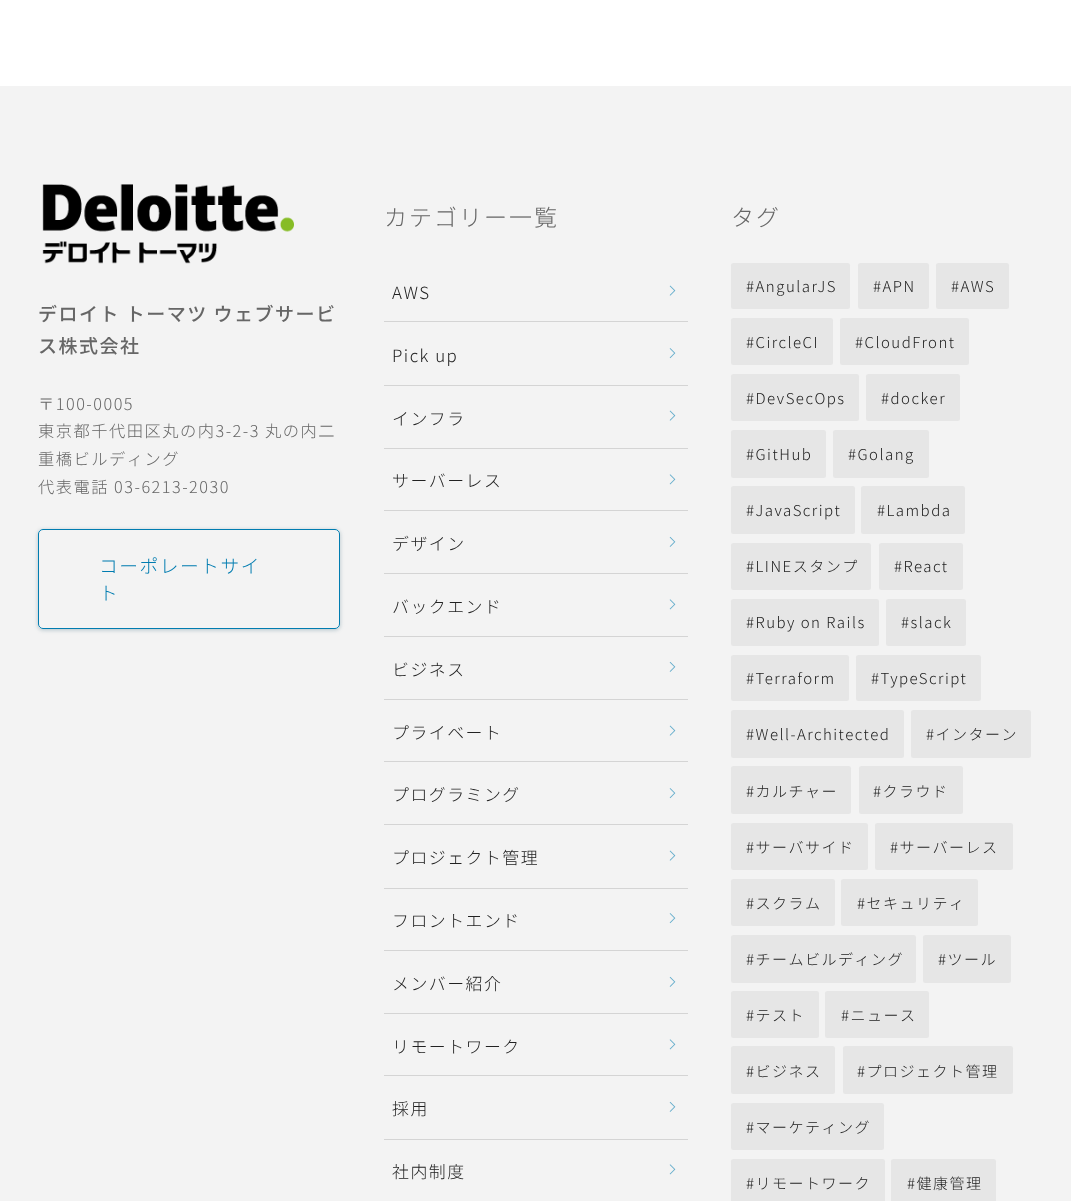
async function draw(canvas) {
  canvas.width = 1071;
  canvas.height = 1201;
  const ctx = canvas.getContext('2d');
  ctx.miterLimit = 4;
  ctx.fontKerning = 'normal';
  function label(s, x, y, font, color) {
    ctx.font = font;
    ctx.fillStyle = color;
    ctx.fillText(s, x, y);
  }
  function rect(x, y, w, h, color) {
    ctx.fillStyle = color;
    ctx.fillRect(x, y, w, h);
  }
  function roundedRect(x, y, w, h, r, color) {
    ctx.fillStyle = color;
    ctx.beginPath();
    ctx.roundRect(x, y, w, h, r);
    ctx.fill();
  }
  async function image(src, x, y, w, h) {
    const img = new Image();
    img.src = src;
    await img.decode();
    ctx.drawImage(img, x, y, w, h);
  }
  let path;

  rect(0, 0, 1071, 1201, '#fff');
  rect(0, 86, 1071, 1115, '#f3f3f3');
  await image('assets/img1.png', 42, 184, 252, 80);
  ctx.letterSpacing = '1.5px';
  label('デロイト トーマツ ウェブサービ', 38, 321, '500 19px Noto Sans JP', '#666');
  label('ス株式会社', 38, 353, '500 19px Noto Sans JP', '#666');
  label('〒100-0005', 38, 410, '300 16.25px Noto Sans JP', '#666');
  label('東京都千代田区丸の内3-2-3 丸の内二', 38, 437, '300 16.25px Noto Sans JP', '#666');
  label('重橋ビルディング', 38, 465, '300 16.25px Noto Sans JP', '#666');
  label('代表電話 03-6213-2030', 38, 493, '300 16.25px Noto Sans JP', '#666');
  ctx.save();
  path = new Path2D('M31 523H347V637H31ZM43 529H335C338 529 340 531 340 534V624C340 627 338 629 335 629H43C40 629 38 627 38 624V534C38 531 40 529 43 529Z');
  ctx.clip(path, 'evenodd');
  ctx.fillStyle = '#003d5745';
  ctx.filter = 'blur(2px)';
  ctx.beginPath();
  ctx.roundRect(38, 530, 302, 100, 5);
  ctx.fill();
  ctx.filter = 'none';
  ctx.restore();
  ctx.beginPath();
  ctx.roundRect(38.5, 529.5, 301, 99, 4.5);
  ctx.strokeStyle = '#007cb0';
  ctx.stroke();
  label('コーポレートサイ', 99, 573, '300 18.75px Noto Sans JP', '#007cb0');
  label('ト', 99, 600, '300 18.75px Noto Sans JP', '#007cb0');
  ctx.letterSpacing = '2px';
  label('カテゴリー一覧', 384, 226, '300 23px Noto Sans JP', '#666');
  ctx.letterSpacing = '1.5px';
  label('AWS', 392, 299, '300 16.9px Noto Sans JP', '#222');
  await image('assets/img2.png', 669, 285, 7, 11);
  rect(384, 321, 304, 1, '#d4d4d4');
  label('Pick up', 392, 362, '300 16.9px Noto Sans JP', '#222');
  await image('assets/img3.png', 669, 348, 7, 11);
  rect(384, 385, 304, 1, '#d4d4d4');
  label('インフラ', 392, 425, '300 16.9px Noto Sans JP', '#222');
  await image('assets/img2.png', 669, 410, 7, 11);
  rect(384, 448, 304, 1, '#d4d4d4');
  label('サーバーレス', 392, 487, '300 16.9px Noto Sans JP', '#222');
  await image('assets/img4.png', 669, 474, 7, 11);
  rect(384, 510, 304, 1, '#d4d4d4');
  label('デザイン', 392, 550, '300 16.9px Noto Sans JP', '#222');
  await image('assets/img5.png', 669, 536, 7, 11);
  rect(384, 573, 304, 1, '#d4d4d4');
  label('バックエンド', 392, 613, '300 16.9px Noto Sans JP', '#222');
  await image('assets/img4.png', 669, 599, 7, 11);
  rect(384, 636, 304, 1, '#d4d4d4');
  label('ビジネス', 392, 676, '300 16.9px Noto Sans JP', '#222');
  await image('assets/img5.png', 669, 661, 7, 11);
  rect(384, 699, 304, 1, '#d4d4d4');
  label('プライベート', 392, 739, '300 16.9px Noto Sans JP', '#222');
  await image('assets/img2.png', 669, 725, 7, 11);
  rect(384, 761, 304, 1, '#d4d4d4');
  label('プログラミング', 392, 801, '300 16.9px Noto Sans JP', '#222');
  await image('assets/img3.png', 669, 788, 7, 11);
  rect(384, 824, 304, 1, '#d4d4d4');
  label('プロジェクト管理', 392, 864, '300 16.9px Noto Sans JP', '#222');
  await image('assets/img2.png', 669, 850, 7, 11);
  rect(384, 888, 304, 1, '#d4d4d4');
  label('フロントエンド', 392, 927, '300 16.9px Noto Sans JP', '#222');
  await image('assets/img3.png', 669, 913, 7, 11);
  rect(384, 950, 304, 1, '#d4d4d4');
  label('メンバー紹介', 392, 990, '300 16.9px Noto Sans JP', '#222');
  await image('assets/img5.png', 669, 976, 7, 11);
  rect(384, 1013, 304, 1, '#d4d4d4');
  label('リモートワーク', 392, 1053, '300 16.9px Noto Sans JP', '#222');
  await image('assets/img4.png', 669, 1039, 7, 11);
  rect(384, 1075, 304, 1, '#d4d4d4');
  label('採用', 392, 1115, '300 16.9px Noto Sans JP', '#222');
  await image('assets/img5.png', 669, 1101, 7, 11);
  rect(384, 1139, 304, 1, '#d4d4d4');
  label('社内制度', 392, 1178, '300 16.9px Noto Sans JP', '#222');
  await image('assets/img4.png', 669, 1164, 7, 11);
  ctx.letterSpacing = '2px';
  label('タグ', 731, 226, '300 23px Noto Sans JP', '#666');
  roundedRect(731, 263, 119, 46, 2.5, '#e6e6e6');
  ctx.letterSpacing = '1.5px';
  label('#AngularJS', 746, 292, '300 15px Noto Sans JP', '#222');
  roundedRect(858, 263, 71, 46, 2.5, '#e6e6e6');
  label('#APN', 873, 292, '300 15px Noto Sans JP', '#222');
  roundedRect(936, 263, 73, 46, 2.5, '#e6e6e6');
  label('#AWS', 951, 292, '300 15px Noto Sans JP', '#222');
  roundedRect(731, 318, 102, 47, 2.5, '#e6e6e6');
  label('#CircleCI', 746, 348, '300 15px Noto Sans JP', '#222');
  roundedRect(840, 318, 129, 47, 2.5, '#e6e6e6');
  label('#CloudFront', 855, 348, '300 15px Noto Sans JP', '#222');
  roundedRect(731, 374, 128, 47, 2.5, '#e6e6e6');
  label('#DevSecOps', 746, 404, '300 15px Noto Sans JP', '#222');
  roundedRect(866, 374, 94, 47, 2.5, '#e6e6e6');
  label('#docker', 881, 404, '300 15px Noto Sans JP', '#222');
  roundedRect(731, 430, 95, 48, 2.5, '#e6e6e6');
  label('#GitHub', 746, 460, '300 15px Noto Sans JP', '#222');
  roundedRect(833, 430, 96, 48, 2.5, '#e6e6e6');
  label('#Golang', 848, 460, '300 15px Noto Sans JP', '#222');
  roundedRect(731, 486, 124, 48, 2.5, '#e6e6e6');
  label('#JavaScript', 746, 516, '300 15px Noto Sans JP', '#222');
  roundedRect(861, 486, 104, 48, 2.5, '#e6e6e6');
  label('#Lambda', 877, 516, '300 15px Noto Sans JP', '#222');
  roundedRect(731, 543, 140, 47, 2.5, '#e6e6e6');
  label('#LINEスタンプ', 746, 572, '300 15px Noto Sans JP', '#222');
  roundedRect(879, 543, 84, 47, 2.5, '#e6e6e6');
  label('#React', 894, 572, '300 15px Noto Sans JP', '#222');
  roundedRect(731, 599, 148, 47, 2.5, '#e6e6e6');
  label('#Ruby on Rails', 746, 628, '300 15px Noto Sans JP', '#222');
  roundedRect(886, 599, 80, 47, 2.5, '#e6e6e6');
  label('#slack', 901, 628, '300 15px Noto Sans JP', '#222');
  roundedRect(731, 655, 118, 46, 2.5, '#e6e6e6');
  label('#Terraform', 746, 684, '300 15px Noto Sans JP', '#222');
  roundedRect(856, 655, 125, 46, 2.5, '#e6e6e6');
  label('#TypeScript', 871, 684, '300 15px Noto Sans JP', '#222');
  roundedRect(731, 710, 173, 48, 2.5, '#e6e6e6');
  label('#Well-Architected', 746, 740, '300 15px Noto Sans JP', '#222');
  roundedRect(911, 710, 120, 48, 2.5, '#e6e6e6');
  label('#インターン', 926, 740, '300 15px Noto Sans JP', '#222');
  roundedRect(731, 766, 120, 48, 2.5, '#e6e6e6');
  label('#カルチャー', 746, 797, '300 15px Noto Sans JP', '#222');
  roundedRect(859, 766, 104, 48, 2.5, '#e6e6e6');
  label('#クラウド', 873, 797, '300 15px Noto Sans JP', '#222');
  roundedRect(731, 823, 137, 47, 2.5, '#e6e6e6');
  label('#サーバサイド', 746, 853, '300 15px Noto Sans JP', '#222');
  roundedRect(875, 823, 138, 47, 2.5, '#e6e6e6');
  label('#サーバーレス', 890, 853, '300 15px Noto Sans JP', '#222');
  roundedRect(731, 879, 104, 47, 2.5, '#e6e6e6');
  label('#スクラム', 746, 909, '300 15px Noto Sans JP', '#222');
  roundedRect(841, 879, 137, 47, 2.5, '#e6e6e6');
  label('#セキュリティ', 857, 909, '300 15px Noto Sans JP', '#222');
  roundedRect(731, 935, 185, 48, 2.5, '#e6e6e6');
  label('#チームビルディング', 746, 965, '300 15px Noto Sans JP', '#222');
  roundedRect(923, 935, 88, 48, 2.5, '#e6e6e6');
  label('#ツール', 938, 965, '300 15px Noto Sans JP', '#222');
  roundedRect(731, 991, 88, 47, 2.5, '#e6e6e6');
  label('#テスト', 746, 1021, '300 15px Noto Sans JP', '#222');
  roundedRect(825, 991, 104, 47, 2.5, '#e6e6e6');
  label('#ニュース', 841, 1021, '300 15px Noto Sans JP', '#222');
  roundedRect(731, 1046, 104, 48, 2.5, '#e6e6e6');
  label('#ビジネス', 746, 1077, '300 15px Noto Sans JP', '#222');
  roundedRect(843, 1046, 170, 48, 2.5, '#e6e6e6');
  label('#プロジェクト管理', 857, 1077, '300 15px Noto Sans JP', '#222');
  roundedRect(731, 1103, 153, 47, 2.5, '#e6e6e6');
  label('#マーケティング', 746, 1133, '300 15px Noto Sans JP', '#222');
  roundedRect(731, 1159, 154, 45, 2.5, '#e6e6e6');
  label('#リモートワーク', 746, 1189, '300 15px Noto Sans JP', '#222');
  roundedRect(891, 1159, 105, 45, 2.5, '#e6e6e6');
  label('#健康管理', 907, 1189, '300 15px Noto Sans JP', '#222');
}

draw(document.querySelector('canvas'));
